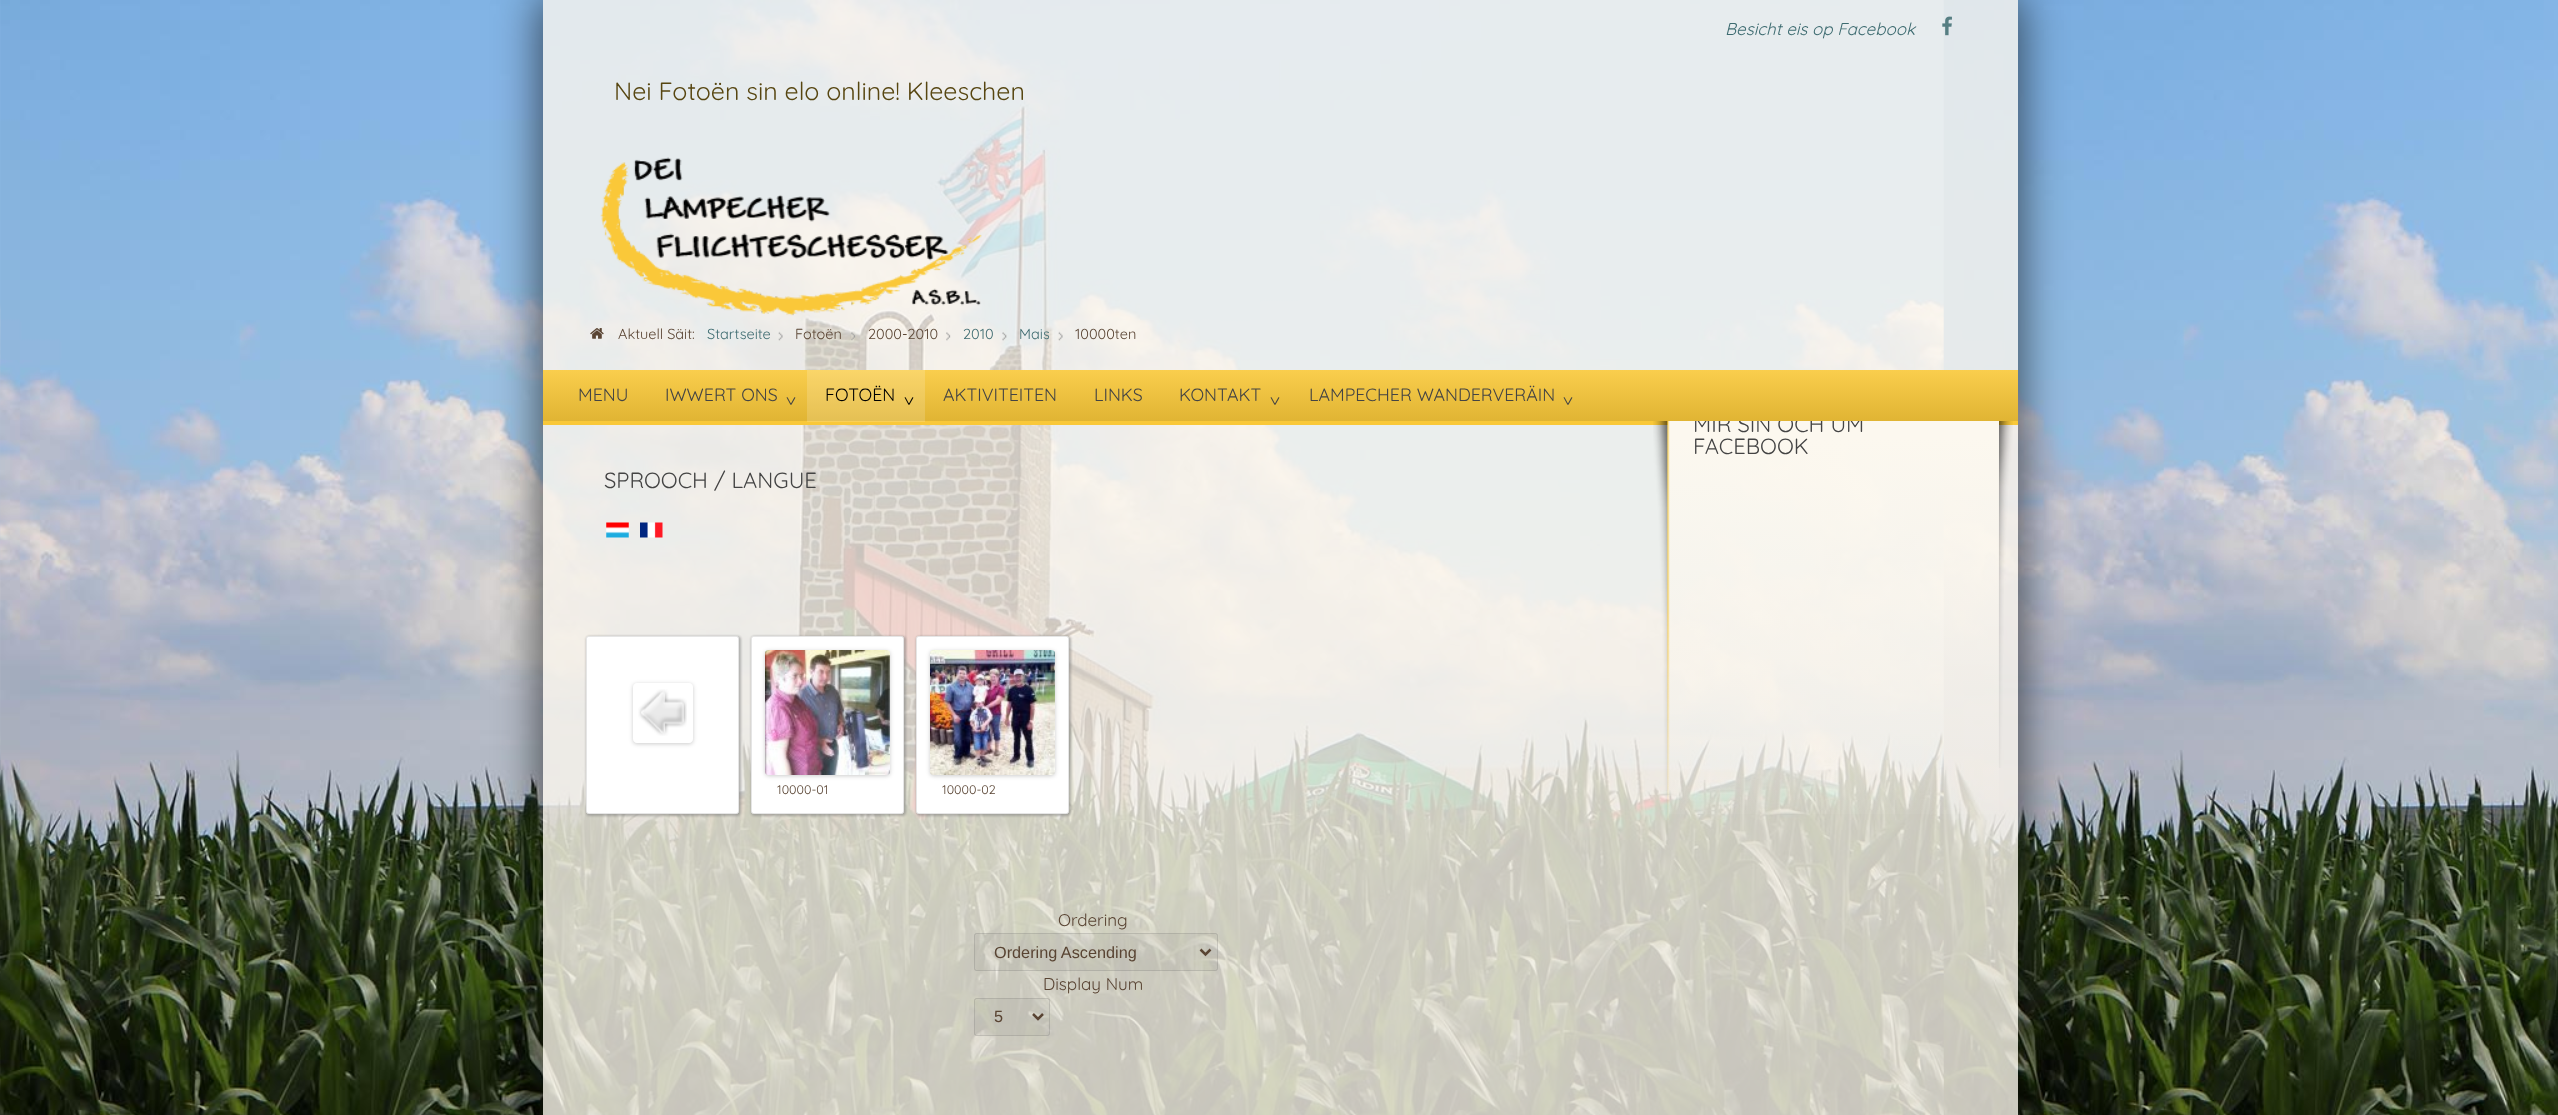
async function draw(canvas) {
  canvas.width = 2558;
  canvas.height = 1115;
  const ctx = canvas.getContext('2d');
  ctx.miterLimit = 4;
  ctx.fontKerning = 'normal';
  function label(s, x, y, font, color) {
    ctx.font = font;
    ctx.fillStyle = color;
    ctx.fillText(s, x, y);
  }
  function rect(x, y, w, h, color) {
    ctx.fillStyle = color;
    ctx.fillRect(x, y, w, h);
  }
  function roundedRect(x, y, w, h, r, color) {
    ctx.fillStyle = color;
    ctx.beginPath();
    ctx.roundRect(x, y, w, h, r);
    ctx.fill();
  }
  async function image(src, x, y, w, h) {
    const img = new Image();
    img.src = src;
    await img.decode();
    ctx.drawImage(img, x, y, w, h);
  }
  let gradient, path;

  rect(0, 0, 2558, 1115, '#fff');
  await image('assets/img1.png', 0, 0, 2558, 1115);
  ctx.save();
  path = new Path2D('M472 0H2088V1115H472ZM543 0H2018V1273C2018 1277.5 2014.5 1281 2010 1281H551C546.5 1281 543 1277.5 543 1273Z');
  ctx.clip(path, 'evenodd');
  ctx.fillStyle = '#00000099';
  ctx.filter = 'blur(22px)';
  ctx.beginPath();
  ctx.roundRect(539, -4, 1482, 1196, 11);
  ctx.fill();
  ctx.filter = 'none';
  ctx.restore();
  rect(543, 0, 1475, 1115, '#fcf8efc9');
  label('Besicht eis op Facebook', 1725, 35, 'italic 300 17px Quicksand', '#3d6b70');
  await image('assets/img2.png', 1942, 16, 10, 20);
  label('Nei Fotoën sin elo online! Kleeschen', 614, 100, '300 25px Quicksand', '#574611');
  await image('assets/img3.png', 600, 157, 382, 159);
  await image('assets/img4.png', 590, 328, 14, 11);
  label('Aktuell Säit:', 618, 339, '300 14.5px Quicksand', '#594433');
  label('Startseite', 707, 339, '300 14.5px Quicksand', '#3d6b70');
  await image('assets/img5.png', 778, 331, 5, 10);
  label('Fotoën', 795, 339, '300 14.5px Quicksand', '#594433');
  await image('assets/img6.png', 851, 332, 5, 9);
  label('2000-2010', 868, 339, '300 14.5px Quicksand', '#594433');
  await image('assets/img7.png', 946, 332, 5, 9);
  label('2010', 963, 339, '300 14.5px Quicksand', '#3d6b70');
  await image('assets/img8.png', 1002, 332, 5, 9);
  label('Mais', 1019, 339, '300 14.5px Quicksand', '#3d6b70');
  await image('assets/img9.png', 1058, 331, 5, 10);
  label('10000ten', 1075, 339, '300 14.5px Quicksand', '#594433');
  rect(543, 421, 1475, 4, '#f9c839');
  await image('assets/img11.png', 1998, 421, 15, 347);
  gradient = ctx.createLinearGradient(1834, 394, 1834, 831);
  gradient.addColorStop(0.1, '#fcf8ef');
  gradient.addColorStop(1, '#fcf8ef00');
  ctx.fillStyle = gradient;
  ctx.fillRect(1668, 421, 331, 393);
  label('MIR SIN OCH UM', 1693, 432, '300 22px Quicksand', '#444');
  gradient = ctx.createLinearGradient(1280, 370, 1280, 421);
  gradient.addColorStop(0, '#face4d');
  gradient.addColorStop(1, '#e0b433');
  ctx.fillStyle = gradient;
  ctx.fillRect(543, 370, 1475, 51);
  label('MENU', 578, 401, '300 17.8px Quicksand', '#444');
  label('IWWERT ONS', 665, 401, '300 17.8px Quicksand', '#444');
  ctx.save();
  ctx.translate(785, 396);
  ctx.rotate(90 * Math.PI / 180);
  ctx.fillText('>', 0, 0);
  ctx.restore();
  rect(807, 370, 118, 52, '#ffffff29');
  label('FOTOËN', 825, 401, '300 17.8px Quicksand', '#000');
  ctx.save();
  ctx.translate(903, 396);
  ctx.rotate(90 * Math.PI / 180);
  ctx.fillText('>', 0, 0);
  ctx.restore();
  label('AKTIVITEITEN', 943, 401, '300 17.8px Quicksand', '#444');
  label('LINKS', 1094, 401, '300 17.8px Quicksand', '#444');
  label('KONTAKT', 1179, 401, '300 17.8px Quicksand', '#444');
  ctx.save();
  ctx.translate(1269, 396);
  ctx.rotate(90 * Math.PI / 180);
  ctx.fillText('>', 0, 0);
  ctx.restore();
  label('LAMPECHER WANDERVERÄIN', 1309, 401, '300 17.8px Quicksand', '#444');
  ctx.save();
  ctx.translate(1562, 396);
  ctx.rotate(90 * Math.PI / 180);
  ctx.fillText('>', 0, 0);
  ctx.restore();
  await image('assets/img10.png', 1653, 421, 15, 423);
  await image('assets/img12.png', 1667, 421, 3, 399);
  label('FACEBOOK', 1693, 454, '300 22px Quicksand', '#444');
  label('SPROOCH / LANGUE', 604, 488, '300 22px Quicksand', '#444');
  await image('assets/img13.png', 606, 522, 23, 16);
  await image('assets/img14.png', 640, 522, 23, 16);
  ctx.fillStyle = '#78787880';
  ctx.filter = 'blur(1px)';
  ctx.beginPath();
  ctx.roundRect(586, 636, 155, 180, 4);
  ctx.fill();
  ctx.filter = 'none';
  ctx.fillStyle = '#fff';
  ctx.beginPath();
  ctx.roundRect(586.5, 636.5, 152, 177, 2);
  ctx.fill();
  ctx.strokeStyle = '#e5e5e5';
  ctx.stroke();
  ctx.save();
  path = new Path2D('M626 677H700V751H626ZM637 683H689C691 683 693 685 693 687V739C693 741 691 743 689 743H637C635 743 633 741 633 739V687C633 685 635 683 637 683Z');
  ctx.clip(path, 'evenodd');
  ctx.fillStyle = '#00000033';
  ctx.filter = 'blur(2px)';
  ctx.beginPath();
  ctx.roundRect(633, 684, 60, 60, 4);
  ctx.fill();
  ctx.filter = 'none';
  ctx.restore();
  roundedRect(633, 683, 60, 60, 4, '#ffffff42');
  await image('assets/img15.png', 638, 689, 49, 47);
  ctx.fillStyle = '#78787880';
  ctx.filter = 'blur(1px)';
  ctx.beginPath();
  ctx.roundRect(751, 636, 155, 180, 4);
  ctx.fill();
  ctx.filter = 'none';
  ctx.fillStyle = '#fff';
  ctx.beginPath();
  ctx.roundRect(751.5, 636.5, 152, 177, 2);
  ctx.fill();
  ctx.stroke();
  ctx.fillStyle = '#00000033';
  ctx.filter = 'blur(2px)';
  ctx.beginPath();
  ctx.roundRect(765, 651, 125, 125, 4);
  ctx.fill();
  ctx.filter = 'none';
  await image('assets/img16.png', 765, 650, 125, 125);
  label('10000-01', 777, 794, '300 12.5px Quicksand', '#594433');
  ctx.fillStyle = '#78787880';
  ctx.filter = 'blur(1px)';
  ctx.beginPath();
  ctx.roundRect(916, 636, 155, 180, 4);
  ctx.fill();
  ctx.filter = 'none';
  ctx.fillStyle = '#fff';
  ctx.beginPath();
  ctx.roundRect(916.5, 636.5, 152, 177, 2);
  ctx.fill();
  ctx.stroke();
  ctx.fillStyle = '#00000033';
  ctx.filter = 'blur(2px)';
  ctx.beginPath();
  ctx.roundRect(930, 651, 125, 125, 4);
  ctx.fill();
  ctx.filter = 'none';
  await image('assets/img17.png', 930, 650, 125, 125);
  label('10000-02', 942, 794, '300 12.5px Quicksand', '#594433');
  label('Ordering', 1058, 926, '300 17px Quicksand', '#594433');
  roundedRect(974, 933, 244, 38, 2.5, '#64646412');
  ctx.beginPath();
  ctx.roundRect(974.5, 933.5, 243, 37, 2);
  ctx.strokeStyle = '#64646433';
  ctx.stroke();
  path = new Path2D('M1200.5 949.5L1205.5 954.5L1210.5 949.5');
  ctx.strokeStyle = '#594433';
  ctx.lineWidth = 2.5;
  ctx.stroke(path);
  label('Ordering Ascending', 994, 958, '16.25px Liberation Sans', '#594433');
  label('Display Num', 1043, 990, '300 17px Quicksand', '#594433');
  roundedRect(974, 998, 76, 38, 2.5, '#64646412');
  ctx.beginPath();
  ctx.roundRect(974.5, 998.5, 75, 37, 2);
  ctx.strokeStyle = '#64646433';
  ctx.lineWidth = 1;
  ctx.stroke();
  path = new Path2D('M1033 1014L1038 1019L1043 1014');
  ctx.strokeStyle = '#594433';
  ctx.lineWidth = 2.5;
  ctx.stroke(path);
  label('5', 994, 1022, '16.25px Liberation Sans', '#594433');
}

draw(document.querySelector('canvas'));
